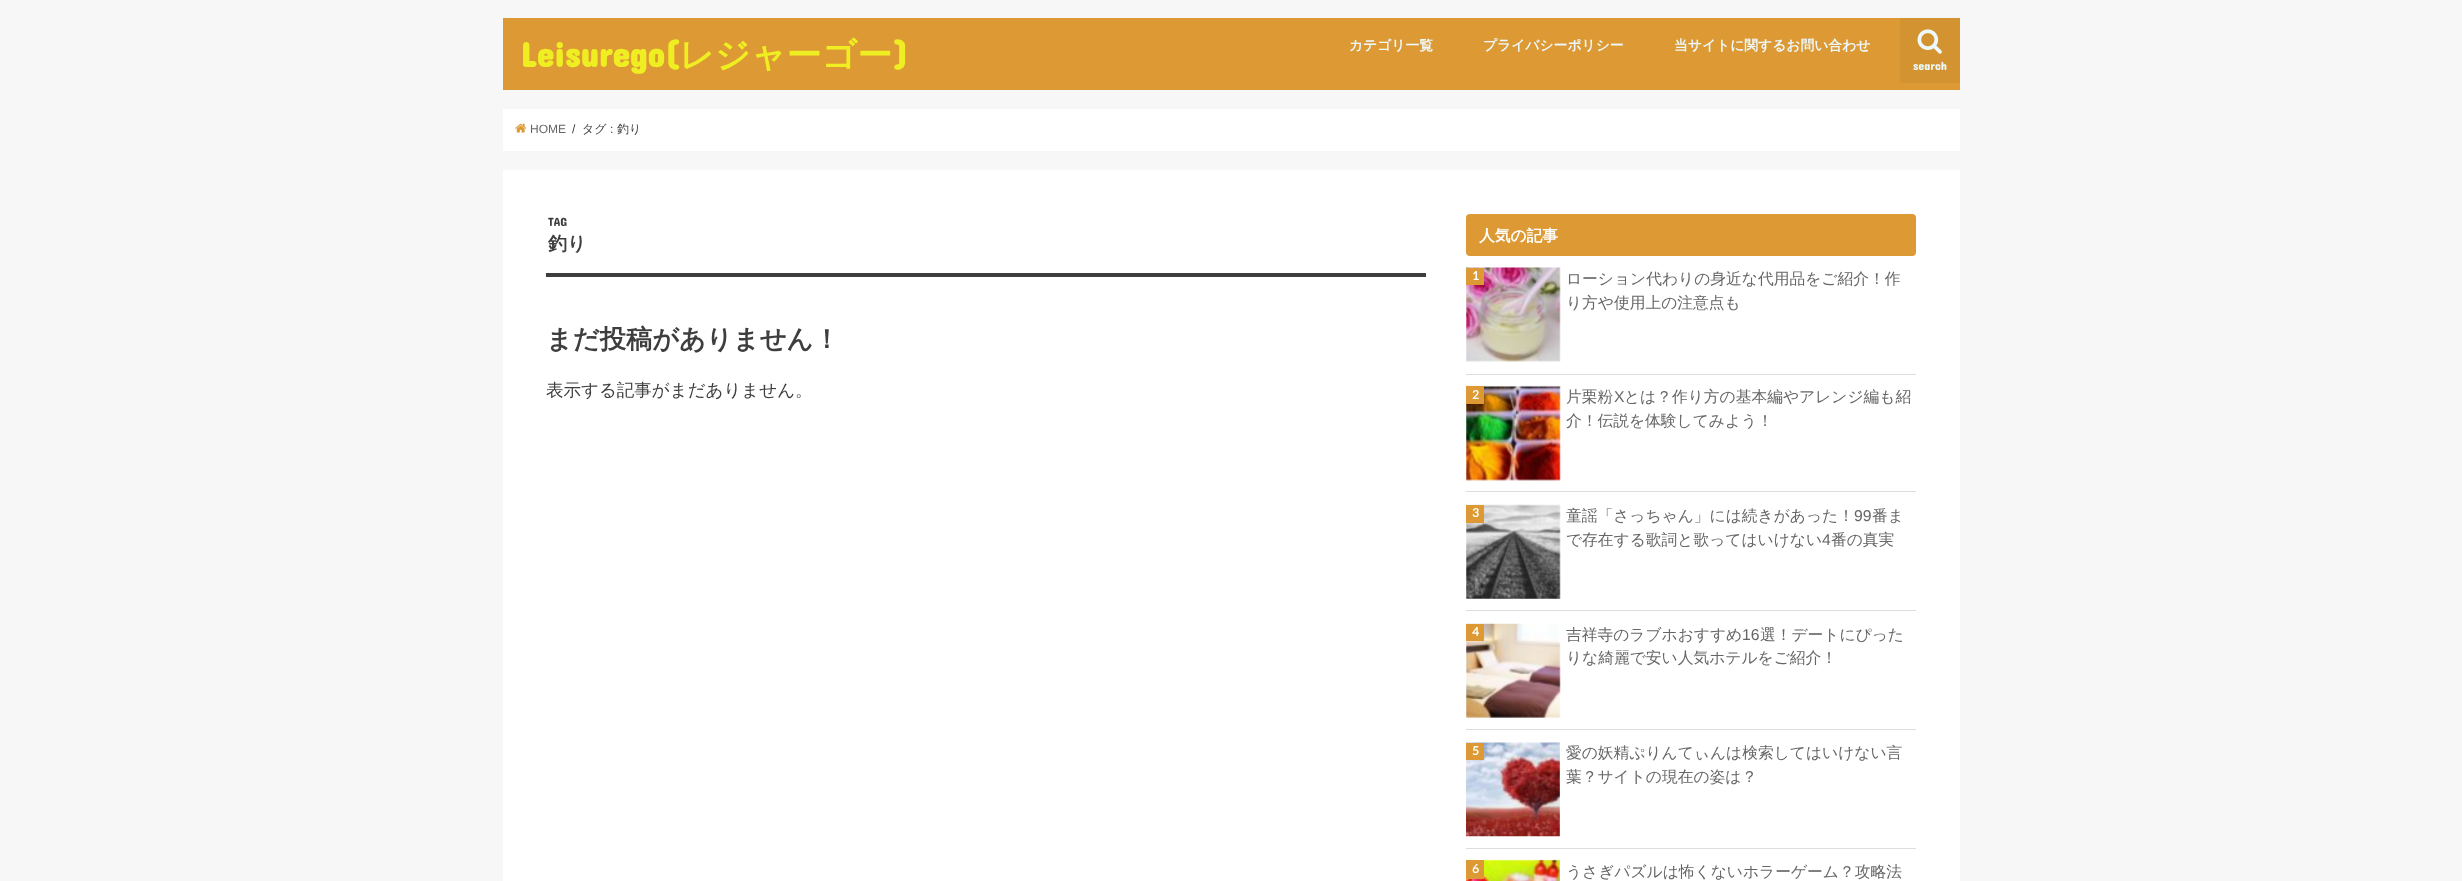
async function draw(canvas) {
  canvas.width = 2462;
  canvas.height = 881;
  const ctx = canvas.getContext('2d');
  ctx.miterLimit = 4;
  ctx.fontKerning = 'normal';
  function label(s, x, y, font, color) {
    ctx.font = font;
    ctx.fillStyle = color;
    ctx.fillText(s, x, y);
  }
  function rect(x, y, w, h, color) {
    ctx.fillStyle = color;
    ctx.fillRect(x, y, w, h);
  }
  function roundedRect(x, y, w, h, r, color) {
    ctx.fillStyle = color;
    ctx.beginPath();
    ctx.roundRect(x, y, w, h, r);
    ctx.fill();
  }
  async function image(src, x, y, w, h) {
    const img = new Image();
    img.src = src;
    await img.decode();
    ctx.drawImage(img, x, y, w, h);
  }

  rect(0, 0, 2462, 881, '#f7f7f7');
  rect(503, 18, 1457, 72, '#d93');
  label('Leisurego(', 520, 67, 'bold 35px Concert One', '#ee2');
  label('レジャーゴー', 679, 67, 'bold 35px WenQuanYi Zen Hei', '#ee2');
  label(')', 893, 67, 'bold 35px Concert One', '#ee2');
  label('カテゴリ一覧', 1349, 50, 'bold 13.8px WenQuanYi Zen Hei', '#edf9fc');
  label('プライバシーポリシー', 1483, 50, 'bold 13.8px WenQuanYi Zen Hei', '#edf9fc');
  label('当サイトに関するお問い合わせ', 1674, 50, 'bold 13.8px WenQuanYi Zen Hei', '#edf9fc');
  rect(1900, 18, 60, 65, '#d49331');
  await image('assets/img1.png', 1917, 29, 25, 25);
  label('search', 1913, 70, '12px Concert One', '#edf9fc');
  rect(503, 109, 1457, 42, '#fff');
  await image('assets/img2.png', 515, 123, 12, 10);
  label('HOME', 530, 133, '12px Liberation Sans', '#666');
  label('/', 572, 133, '12px Liberation Sans', '#3e3e3e');
  label('タグ', 582, 133, '500 12px WenQuanYi Zen Hei', '#3e3e3e');
  label(':', 610, 133, '12px Liberation Sans', '#3e3e3e');
  label('釣り', 617, 133, '500 12px WenQuanYi Zen Hei', '#3e3e3e');
  ctx.fillStyle = '#ddd';
  ctx.filter = 'blur(0.5px)';
  ctx.beginPath();
  ctx.rect(503, 170, 1457, 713);
  ctx.fill();
  ctx.filter = 'none';
  rect(503, 170, 1457, 711, '#fff');
  rect(546, 273, 880, 4, '#3e3e3e');
  label('TAG', 548, 226, '12px Concert One', '#3e3e3e');
  label('釣り', 548, 250, 'bold 19px WenQuanYi Zen Hei', '#3e3e3e');
  label('まだ投稿がありません！', 546, 348, 'bold 26.25px WenQuanYi Zen Hei', '#3e3e3e');
  label('表示する記事がまだありません。', 546, 396, '500 17.5px WenQuanYi Zen Hei', '#3e3e3e');
  roundedRect(1466, 214, 450, 42, 4, '#d93');
  label('人気の記事', 1479, 241, 'bold 15.75px WenQuanYi Zen Hei', '#fff');
  rect(1466, 374, 450, 1, '#ddd');
  await image('assets/img3.png', 1466, 267, 95, 95);
  rect(1466, 268, 18, 17, '#d93');
  label('1', 1472, 280, 'bold 12px Lato', '#fff');
  label('ローション代わりの身近な代用品をご紹介！作', 1566, 284, '500 15.75px WenQuanYi Zen Hei', '#666');
  label('り方や使用上の注意点も', 1566, 308, '500 15.75px WenQuanYi Zen Hei', '#666');
  rect(1466, 491, 450, 1, '#ddd');
  await image('assets/img4.png', 1466, 385, 95, 96);
  rect(1466, 386, 18, 18, '#d93');
  label('2', 1472, 399, 'bold 12px Lato', '#fff');
  label('片栗粉', 1566, 402, '500 15.75px WenQuanYi Zen Hei', '#666');
  label('X', 1614, 402, '15.75px Liberation Sans', '#666');
  label('とは？作り方の基本編やアレンジ編も紹', 1624, 402, '500 15.75px WenQuanYi Zen Hei', '#666');
  label('介！伝説を体験してみよう！', 1566, 426, '500 15.75px WenQuanYi Zen Hei', '#666');
  rect(1466, 610, 450, 1, '#ddd');
  await image('assets/img5.png', 1466, 504, 95, 95);
  rect(1466, 505, 18, 18, '#d93');
  label('3', 1472, 517, 'bold 12px Lato', '#fff');
  label('童謡「さっちゃん」には続きがあった！', 1566, 521, '500 15.75px WenQuanYi Zen Hei', '#666');
  label('99', 1854, 521, '15.75px Liberation Sans', '#666');
  label('番ま', 1872, 521, '500 15.75px WenQuanYi Zen Hei', '#666');
  label('で存在する歌詞と歌ってはいけない', 1566, 545, '500 15.75px WenQuanYi Zen Hei', '#666');
  label('4', 1822, 545, '15.75px Liberation Sans', '#666');
  label('番の真実', 1831, 545, '500 15.75px WenQuanYi Zen Hei', '#666');
  rect(1466, 729, 450, 1, '#ddd');
  await image('assets/img6.png', 1466, 623, 95, 95);
  rect(1466, 624, 18, 17, '#d93');
  label('4', 1472, 636, 'bold 12px Lato', '#fff');
  label('吉祥寺のラブホおすすめ', 1566, 640, '500 15.75px WenQuanYi Zen Hei', '#666');
  label('16', 1742, 640, '15.75px Liberation Sans', '#666');
  label('選！デートにぴった', 1760, 640, '500 15.75px WenQuanYi Zen Hei', '#666');
  label('りな綺麗で安い人気ホテルをご紹介！', 1566, 663, '500 15.75px WenQuanYi Zen Hei', '#666');
  rect(1466, 848, 450, 1, '#ddd');
  await image('assets/img7.png', 1466, 742, 94, 95);
  rect(1466, 743, 18, 17, '#d93');
  label('5', 1472, 755, 'bold 12px Lato', '#fff');
  label('愛の妖精ぷりんてぃんは検索してはいけない言', 1566, 758, '500 15.75px WenQuanYi Zen Hei', '#666');
  label('葉？サイトの現在の姿は？', 1566, 782, '500 15.75px WenQuanYi Zen Hei', '#666');
  await image('assets/img8.png', 1466, 859, 94, 22);
  rect(1466, 860, 18, 19, '#d93');
  label('6', 1472, 873, 'bold 12px Lato', '#fff');
  label('うさぎパズルは怖くないホラーゲーム？攻略法', 1566, 877, '500 15.75px WenQuanYi Zen Hei', '#666');
}

draw(document.querySelector('canvas'));
